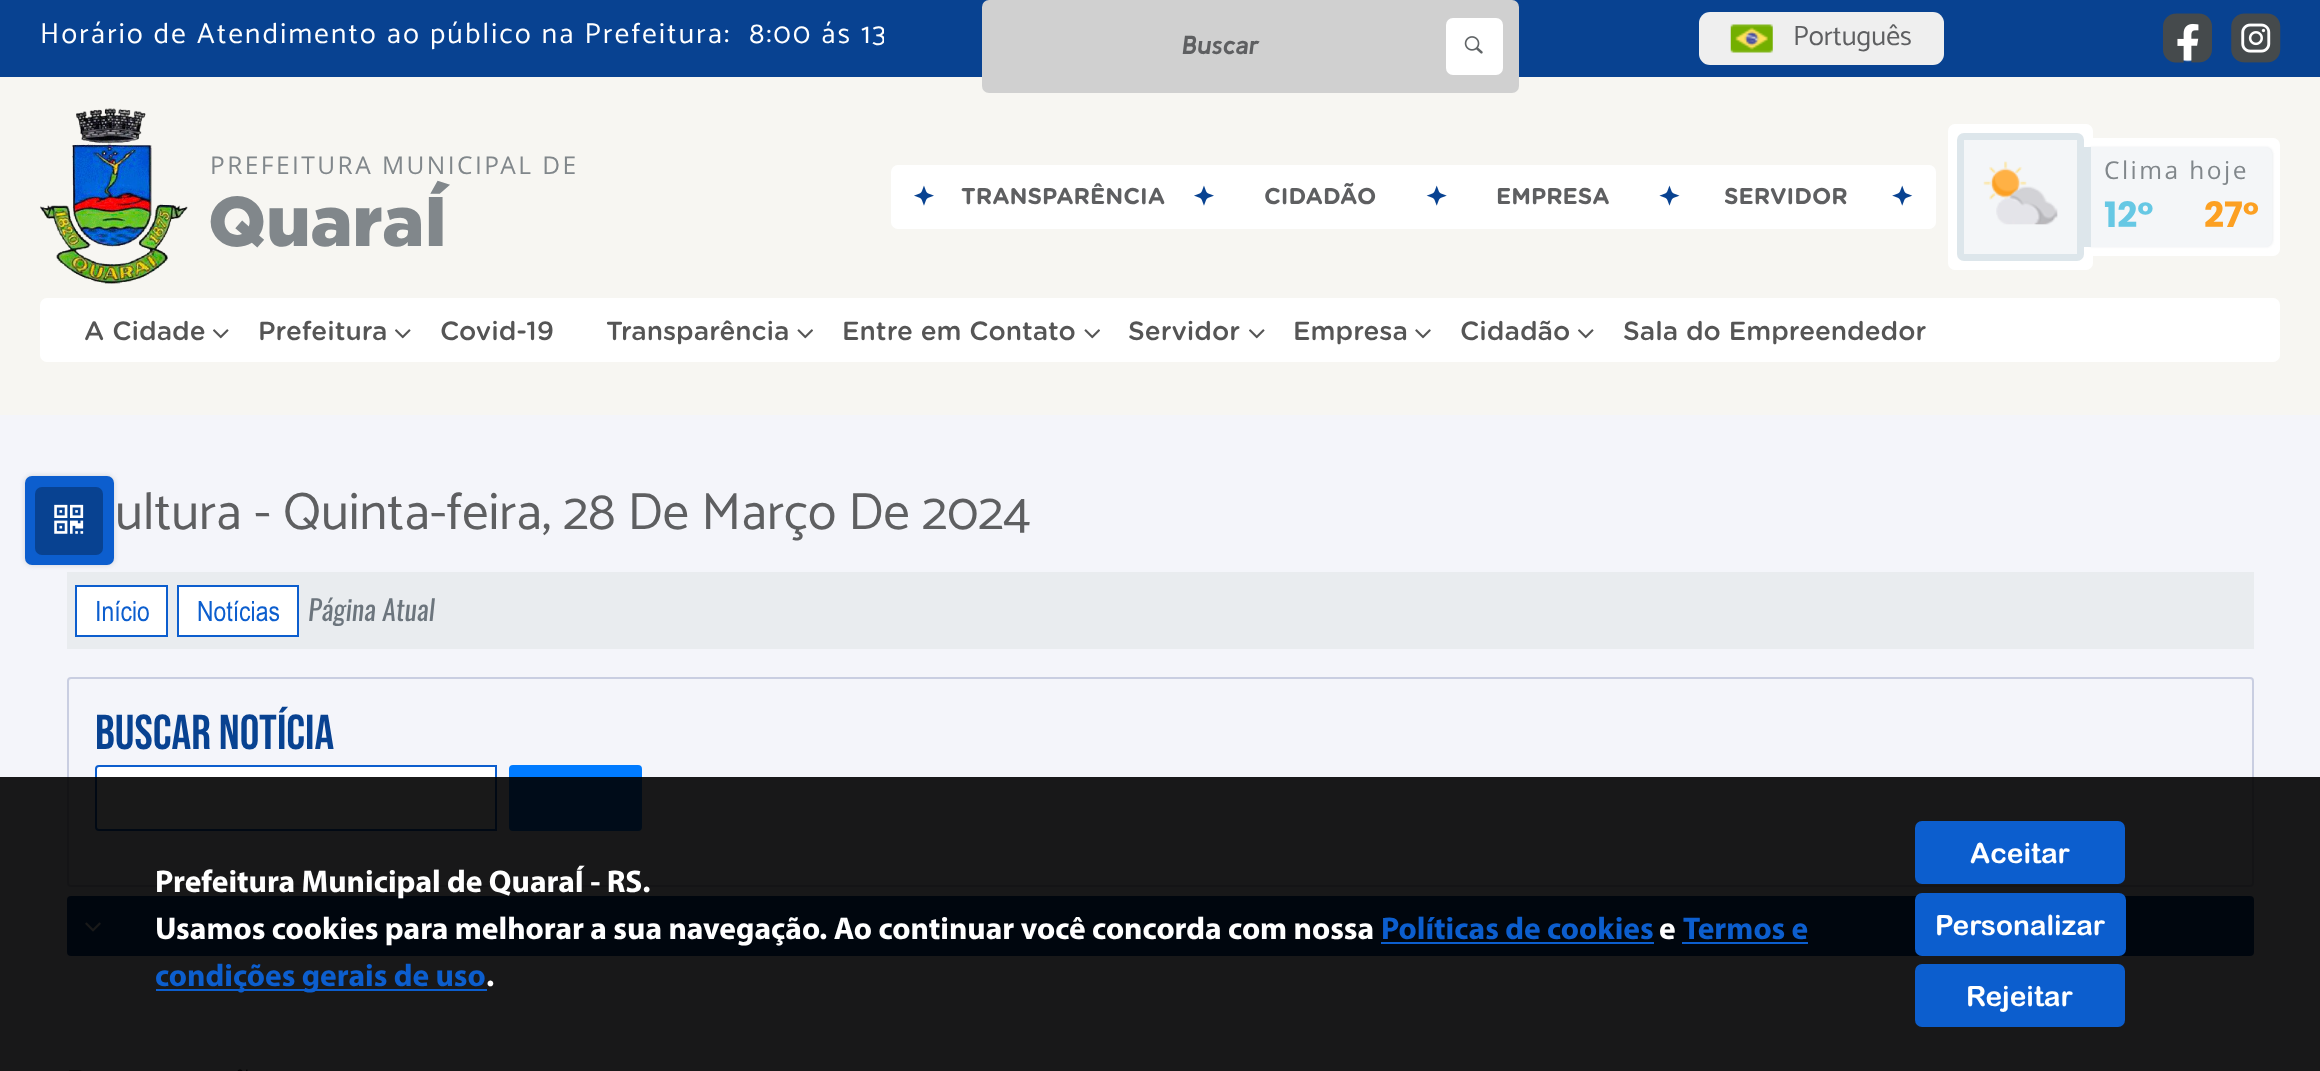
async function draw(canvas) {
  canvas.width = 2320;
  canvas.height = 1071;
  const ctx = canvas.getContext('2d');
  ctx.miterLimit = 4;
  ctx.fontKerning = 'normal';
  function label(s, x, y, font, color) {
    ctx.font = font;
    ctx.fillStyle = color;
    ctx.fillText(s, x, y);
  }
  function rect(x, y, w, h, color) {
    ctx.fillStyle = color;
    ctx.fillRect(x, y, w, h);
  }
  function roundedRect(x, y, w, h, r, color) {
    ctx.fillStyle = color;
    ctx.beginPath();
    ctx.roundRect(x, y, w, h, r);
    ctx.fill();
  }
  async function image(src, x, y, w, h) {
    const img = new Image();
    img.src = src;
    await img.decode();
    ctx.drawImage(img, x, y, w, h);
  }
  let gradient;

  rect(0, 0, 2320, 1071, '#f7f6f2');
  rect(0, 0, 2320, 77, '#084291');
  ctx.save();
  ctx.beginPath();
  ctx.rect(40, 0, 844, 77);
  ctx.clip();
  ctx.letterSpacing = '2.27px';
  label('Horário de Atendimento ao público na Prefeitura:  8:00 ás 13', 40, 43, '28.9px Catamaran', '#fff');
  ctx.restore();
  roundedRect(982, 0, 537, 93, 7, '#d0d0d0');
  label('Buscar', 1182, 54, 'italic bold 26.25px Kulim Park', '#5e5f61');
  roundedRect(1446, 18, 57, 57, 7, '#fff');
  await image('assets/img1.png', 1464, 36, 19, 18);
  roundedRect(1699, 12, 245, 53, 11, '#efefef');
  await image('assets/img2.png', 1730, 24, 43, 29);
  label('Português', 1793, 45, '28px Catamaran', '#5e5f61');
  gradient = ctx.createRadialGradient(2188, 39, 0, 2188, 39, 35);
  gradient.addColorStop(0.6, '#fff');
  gradient.addColorStop(0.65, '#084291');
  ctx.fillStyle = gradient;
  ctx.beginPath();
  ctx.roundRect(2163, 14, 49, 49, 7);
  ctx.fill();
  await image('assets/img3.png', 2163, 13, 49, 50);
  gradient = ctx.createRadialGradient(2256, 39, 0, 2256, 39, 35);
  gradient.addColorStop(0.6, '#fff');
  gradient.addColorStop(0.65, '#084291');
  ctx.fillStyle = gradient;
  ctx.beginPath();
  ctx.roundRect(2231, 14, 49, 49, 7);
  ctx.fill();
  await image('assets/img4.png', 2231, 13, 50, 50);
  await image('assets/img5.png', 40, 108, 148, 176);
  ctx.letterSpacing = '2.45px';
  label('PREFEITURA MUNICIPAL DE', 210, 174, '24.5px Open Sans', '#81878b');
  ctx.letterSpacing = '0px';
  label('QuaraÍ', 208, 246, '900 70px Gotham', '#81878b');
  roundedRect(891, 165, 1045, 64, 7, '#fff');
  await image('assets/img6.png', 914, 185, 20, 21);
  label('TRANSPARÊNCIA', 961, 204, 'bold 22.75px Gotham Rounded', '#5e5f61');
  await image('assets/img6.png', 1194, 185, 20, 21);
  label('CIDADÃO', 1264, 204, 'bold 22.75px Gotham Rounded', '#5e5f61');
  await image('assets/img7.png', 1426, 185, 21, 21);
  label('EMPRESA', 1496, 204, 'bold 22.75px Gotham Rounded', '#5e5f61');
  await image('assets/img8.png', 1659, 185, 21, 21);
  label('SERVIDOR', 1724, 204, 'bold 22.75px Gotham Rounded', '#5e5f61');
  await image('assets/img9.png', 1892, 185, 21, 21);
  ctx.fillStyle = '#fff';
  ctx.beginPath();
  ctx.roundRect(1952.5, 128.5, 136, 137, 2.5);
  ctx.fill();
  ctx.strokeStyle = '#fff';
  ctx.lineWidth = 9;
  ctx.stroke();
  ctx.fillStyle = '#f4f6f8';
  ctx.beginPath();
  ctx.roundRect(1960.5, 136.5, 120, 121, 3.5);
  ctx.fill();
  ctx.strokeStyle = '#dde6eb';
  ctx.lineWidth = 7;
  ctx.stroke();
  await image('assets/img10.png', 1983, 161, 75, 64);
  ctx.fillStyle = '#fff';
  ctx.beginPath();
  ctx.roundRect(2097.5, 142.5, 178, 109, [0, 2.5, 2.5, 0]);
  ctx.fill();
  ctx.strokeStyle = '#fff';
  ctx.lineWidth = 9;
  ctx.stroke();
  ctx.fillStyle = '#eceef0';
  ctx.filter = 'blur(1px)';
  ctx.beginPath();
  ctx.roundRect(2086, 147, 187, 100, 7);
  ctx.fill();
  ctx.filter = 'none';
  ctx.fillStyle = '#f4f6f8';
  ctx.beginPath();
  ctx.roundRect(2084, 147, 188, 100, [0, 7, 7, 0]);
  ctx.fill();
  rect(2084, 147, 7, 100, '#dde6eb');
  ctx.letterSpacing = '2.45px';
  label('Clima hoje', 2104, 179, '24.5px Open Sans', '#81878b');
  ctx.letterSpacing = '0px';
  label('12°', 2104, 227, 'bold 35px Poppins', '#66c8e4');
  label('27°', 2204, 227, 'bold 35px Poppins', '#fca022');
  roundedRect(40, 298, 2240, 64, 7, '#fff');
  label('A Cidade', 84, 340, '500 26.25px Gotham Rounded', '#555');
  await image('assets/img11.png', 213, 329, 16, 10);
  label('Prefeitura', 258, 340, '500 26.25px Gotham Rounded', '#555');
  await image('assets/img11.png', 395, 329, 16, 10);
  label('Covid-19', 440, 340, '500 26.25px Gotham Rounded', '#555');
  label('Transparência', 606, 340, '500 26.25px Gotham Rounded', '#555');
  await image('assets/img12.png', 797, 329, 16, 10);
  label('Entre em Contato', 842, 340, '500 26.25px Gotham Rounded', '#555');
  await image('assets/img12.png', 1084, 329, 16, 10);
  label('Servidor', 1128, 340, '500 26.25px Gotham Rounded', '#555');
  await image('assets/img11.png', 1249, 329, 16, 10);
  label('Empresa', 1293, 340, '500 26.25px Gotham Rounded', '#555');
  await image('assets/img13.png', 1415, 329, 16, 10);
  label('Cidadão', 1460, 340, '500 26.25px Gotham Rounded', '#555');
  await image('assets/img11.png', 1578, 329, 16, 10);
  label('Sala do Empreendedor', 1623, 340, '500 26.25px Gotham Rounded', '#555');
  rect(0, 415, 2320, 656, '#f4f5fa');
  label('ultura - Quinta-feira, 28 De Março De 2024', 115, 529, '52.5px Catamaran', '#5e5f61');
  rect(67, 572, 2187, 77, '#e9ecef');
  ctx.fillStyle = '#fff';
  ctx.beginPath();
  ctx.rect(76, 586, 91, 50);
  ctx.fill();
  ctx.strokeStyle = '#0c5ece';
  ctx.lineWidth = 2;
  ctx.stroke();
  label('Início', 95, 621, '28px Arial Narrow', '#0c5ece');
  ctx.fillStyle = '#fff';
  ctx.beginPath();
  ctx.rect(178, 586, 120, 50);
  ctx.fill();
  ctx.stroke();
  label('Notícias', 197, 621, '28px Arial Narrow', '#0c5ece');
  label('Página Atual', 308, 621, 'italic 28px Oswald', '#6c757d');
  ctx.beginPath();
  ctx.roundRect(68, 678, 2185, 208, 3);
  ctx.strokeStyle = '#c9cee1';
  ctx.stroke();
  label('Buscar Notícia', 95, 749, '49px Bebas Neue', '#084291');
  ctx.fillStyle = '#fff';
  ctx.beginPath();
  ctx.roundRect(96, 766, 400, 64, [3, 0, 0, 3]);
  ctx.fill();
  ctx.strokeStyle = '#0c5ece';
  ctx.stroke();
  ctx.fillStyle = '#007bff';
  ctx.beginPath();
  ctx.roundRect(510, 766, 131, 64, 3);
  ctx.fill();
  ctx.strokeStyle = '#007bff';
  ctx.stroke();
  roundedRect(67, 896, 2187, 60, 4, '#084291');
  await image('assets/img14.png', 85, 922, 16, 10);
  await image('assets/img15.png', 69, 1069, 179, 2);
  rect(0, 777, 2320, 294, '#000000e6');
  label('Prefeitura Municipal de QuaraÍ - RS.', 155, 892, 'bold 31.5px Myriad', '#fff');
  label('Usamos cookies para melhorar a sua navegação. Ao continuar você concorda com nossa', 155, 939, 'bold 31.5px Myriad', '#fff');
  label('Políticas de cookies', 1381, 939, 'bold 31.5px Myriad', '#0c5ece');
  rect(1381, 942, 273, 2, '#0c5ece');
  label('e', 1659, 939, 'bold 31.5px Myriad', '#fff');
  label('Termos e', 1683, 939, 'bold 31.5px Myriad', '#0c5ece');
  rect(1682, 942, 126, 2, '#0c5ece');
  rect(156, 989, 331, 2, '#0c5ece');
  label('condições gerais de uso', 155, 986, 'bold 31.5px Myriad', '#0c5ece');
  label('.', 486, 986, 'bold 31.5px Myriad', '#fff');
  roundedRect(1915, 821, 210, 63, 7, '#0c5ece');
  label('Aceitar', 1970, 863, 'bold 28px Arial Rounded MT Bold', '#fff');
  roundedRect(1915, 893, 211, 63, 7, '#0c5ece');
  label('Personalizar', 1935, 935, 'bold 28px Arial Rounded MT Bold', '#fff');
  roundedRect(1915, 964, 210, 63, 7, '#0c5ece');
  label('Rejeitar', 1966, 1006, 'bold 28px Arial Rounded MT Bold', '#fff');
  ctx.fillStyle = '#cbd0d6';
  ctx.filter = 'blur(2.5px)';
  ctx.beginPath();
  ctx.roundRect(25, 476, 89, 89, 7);
  ctx.fill();
  ctx.filter = 'none';
  roundedRect(25, 476, 89, 89, 7, '#0c5ece');
  roundedRect(35, 487, 68, 68, 7, '#084291');
  await image('assets/img16.png', 54, 504, 30, 30);
}

draw(document.querySelector('canvas'));
